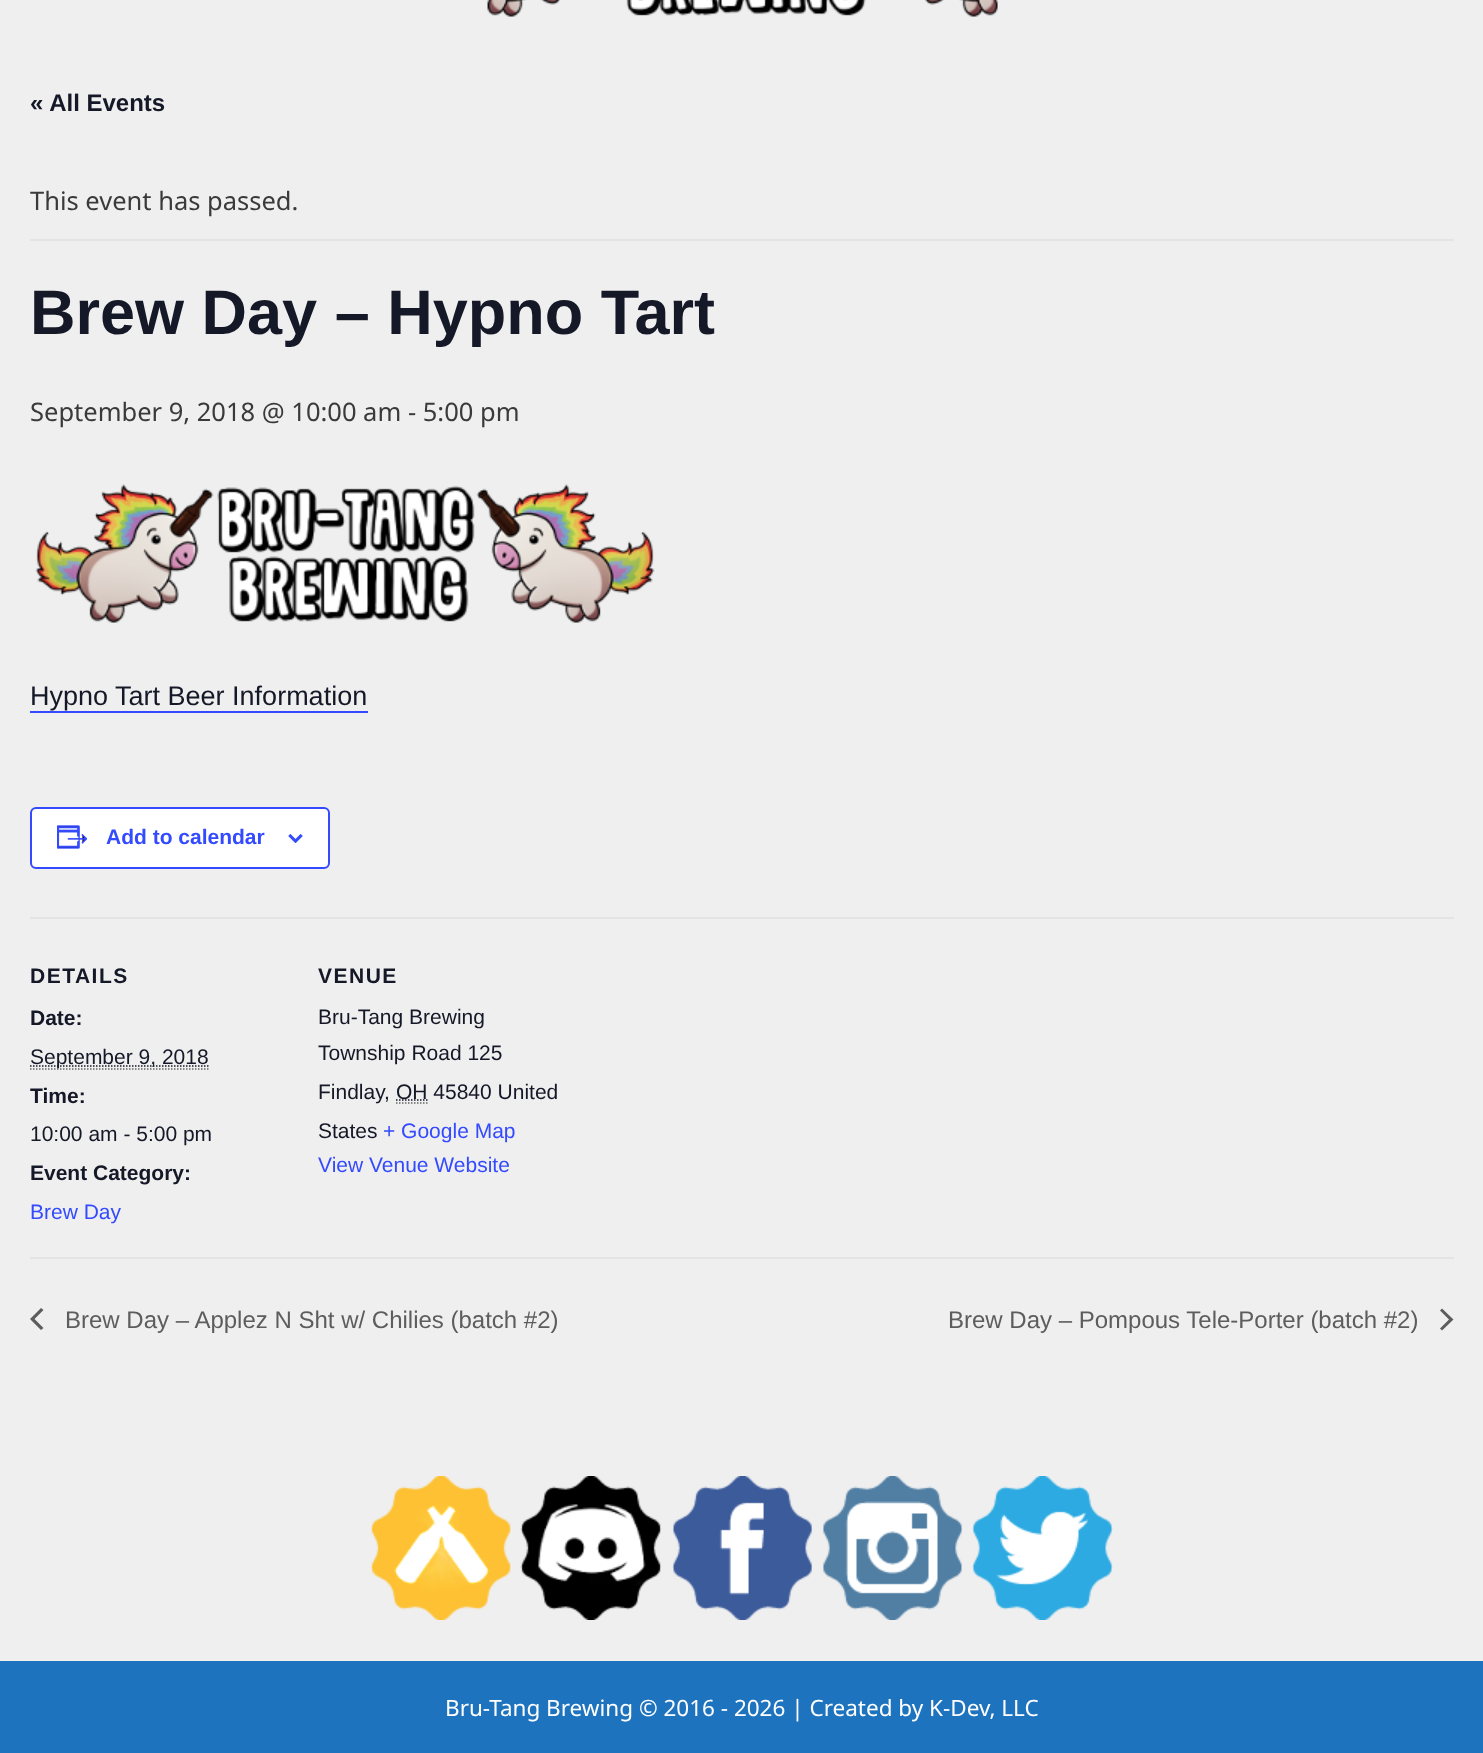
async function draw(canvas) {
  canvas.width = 1483;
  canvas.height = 1753;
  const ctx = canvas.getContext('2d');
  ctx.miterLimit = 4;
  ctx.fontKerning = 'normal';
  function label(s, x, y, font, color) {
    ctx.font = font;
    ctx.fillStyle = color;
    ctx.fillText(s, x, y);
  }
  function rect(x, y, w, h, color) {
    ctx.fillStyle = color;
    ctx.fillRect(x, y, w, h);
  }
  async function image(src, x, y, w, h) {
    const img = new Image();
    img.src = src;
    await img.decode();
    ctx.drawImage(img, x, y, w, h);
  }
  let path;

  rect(0, 0, 1483, 1753, '#efefef');
  await image('assets/img1.png', 487, 0, 511, 17);
  label('« All Events', 30, 111, 'bold 24px Liberation Sans', '#141827');
  rect(30, 239, 1424, 2, '#e4e4e4');
  label('This event has passed.', 30, 210, '25.5px Noto Sans', '#3a3a3a');
  label('Brew Day – Hypno Tart', 30, 334, 'bold 63px Liberation Sans', '#141827');
  label('September 9, 2018 @ 10:00 am - 5:00 pm', 30, 421, '25.5px Noto Sans', '#3a3a3a');
  await image('assets/img2.png', 35, 484, 620, 139);
  label('Hypno Tart Beer Information', 30, 705, '27px Liberation Sans', '#141827');
  rect(30, 711, 338, 2, '#334aff');
  ctx.fillStyle = '#fff';
  ctx.beginPath();
  ctx.roundRect(31, 808, 298, 60, 5);
  ctx.fill();
  ctx.strokeStyle = '#334aff';
  ctx.lineWidth = 2;
  ctx.stroke();
  await image('assets/img3.png', 57, 825, 31, 24);
  label('Add to calendar', 106, 844, 'bold 21px Liberation Sans', '#334aff');
  await image('assets/img4.png', 288, 834, 15, 9);
  rect(30, 917, 1424, 2, '#e4e4e4');
  ctx.letterSpacing = '1.5px';
  label('DETAILS', 30, 983, 'bold 21px Liberation Sans', '#141827');
  ctx.letterSpacing = '0px';
  label('Date:', 30, 1025, 'bold 21px Liberation Sans', '#141827');
  path = new Path2D('M30 1069H208.5');
  ctx.strokeStyle = '#666';
  ctx.lineWidth = 1.5;
  ctx.setLineDash([1.5, 1.5]);
  ctx.stroke(path);
  path = new Path2D('M30 1066H208.5');
  ctx.strokeStyle = '#141827';
  ctx.stroke(path);
  label('September 9, 2018', 30, 1064, '21px Liberation Sans', '#141827');
  label('Time:', 30, 1103, 'bold 21px Liberation Sans', '#141827');
  label('10:00 am - 5:00 pm', 30, 1141, '21px Liberation Sans', '#141827');
  label('Event Category:', 30, 1180, 'bold 21px Liberation Sans', '#141827');
  label('Brew Day', 30, 1219, '21px Liberation Sans', '#334aff');
  ctx.letterSpacing = '1.5px';
  label('VENUE', 318, 983, 'bold 21px Liberation Sans', '#141827');
  ctx.letterSpacing = '0px';
  label('Bru-Tang Brewing', 318, 1024, '21px Liberation Sans', '#141827');
  label('Township Road 125', 318, 1060, '21px Liberation Sans', '#141827');
  label('Findlay', 318, 1099, '21px Liberation Sans', '#141827');
  label(',', 384, 1099, '21px Liberation Sans', '#141827');
  path = new Path2D('M396 1103H427.5');
  ctx.strokeStyle = '#666';
  ctx.stroke(path);
  path = new Path2D('M396 1100H427.5');
  ctx.strokeStyle = '#141827';
  ctx.stroke(path);
  label('OH 45840 United', 396, 1099, '21px Liberation Sans', '#141827');
  label('States', 318, 1138, '21px Liberation Sans', '#141827');
  label('+ Google Map', 383, 1138, '21px Liberation Sans', '#334aff');
  label('View Venue Website', 318, 1172, '21px Liberation Sans', '#334aff');
  rect(30, 1257, 1424, 2, '#e4e4e4');
  ctx.fillStyle = '#5d5d5d';
  path = new Path2D('M43.5 1328L41 1330L30 1319L41 1308L43.5 1310L34.5 1319Z');
  ctx.fill(path);
  label('Brew Day – Applez N Sht w/ Chilies (batch #2)', 65, 1328, '24px Liberation Sans', '#5d5d5d');
  label('Brew Day – Pompous Tele-Porter (batch #2)', 948, 1328, '24px Liberation Sans', '#5d5d5d');
  path = new Path2D('M1440 1310.5L1442 1308.5L1453.5 1319.5L1442 1330.5L1440 1328.5L1449 1319.5Z');
  ctx.fill(path);
  await image('assets/img5.png', 370, 1476, 142, 144);
  await image('assets/img6.png', 520, 1476, 142, 144);
  await image('assets/img7.png', 672, 1476, 141, 144);
  await image('assets/img8.png', 822, 1476, 141, 144);
  await image('assets/img9.png', 972, 1476, 141, 144);
  rect(0, 1661, 1483, 92, '#1e73be');
  label('Bru-Tang Brewing © 2016 - 2026 | Created by K-Dev, LLC', 445, 1716, '22.5px Noto Sans', '#fff');
}

draw(document.querySelector('canvas'));
